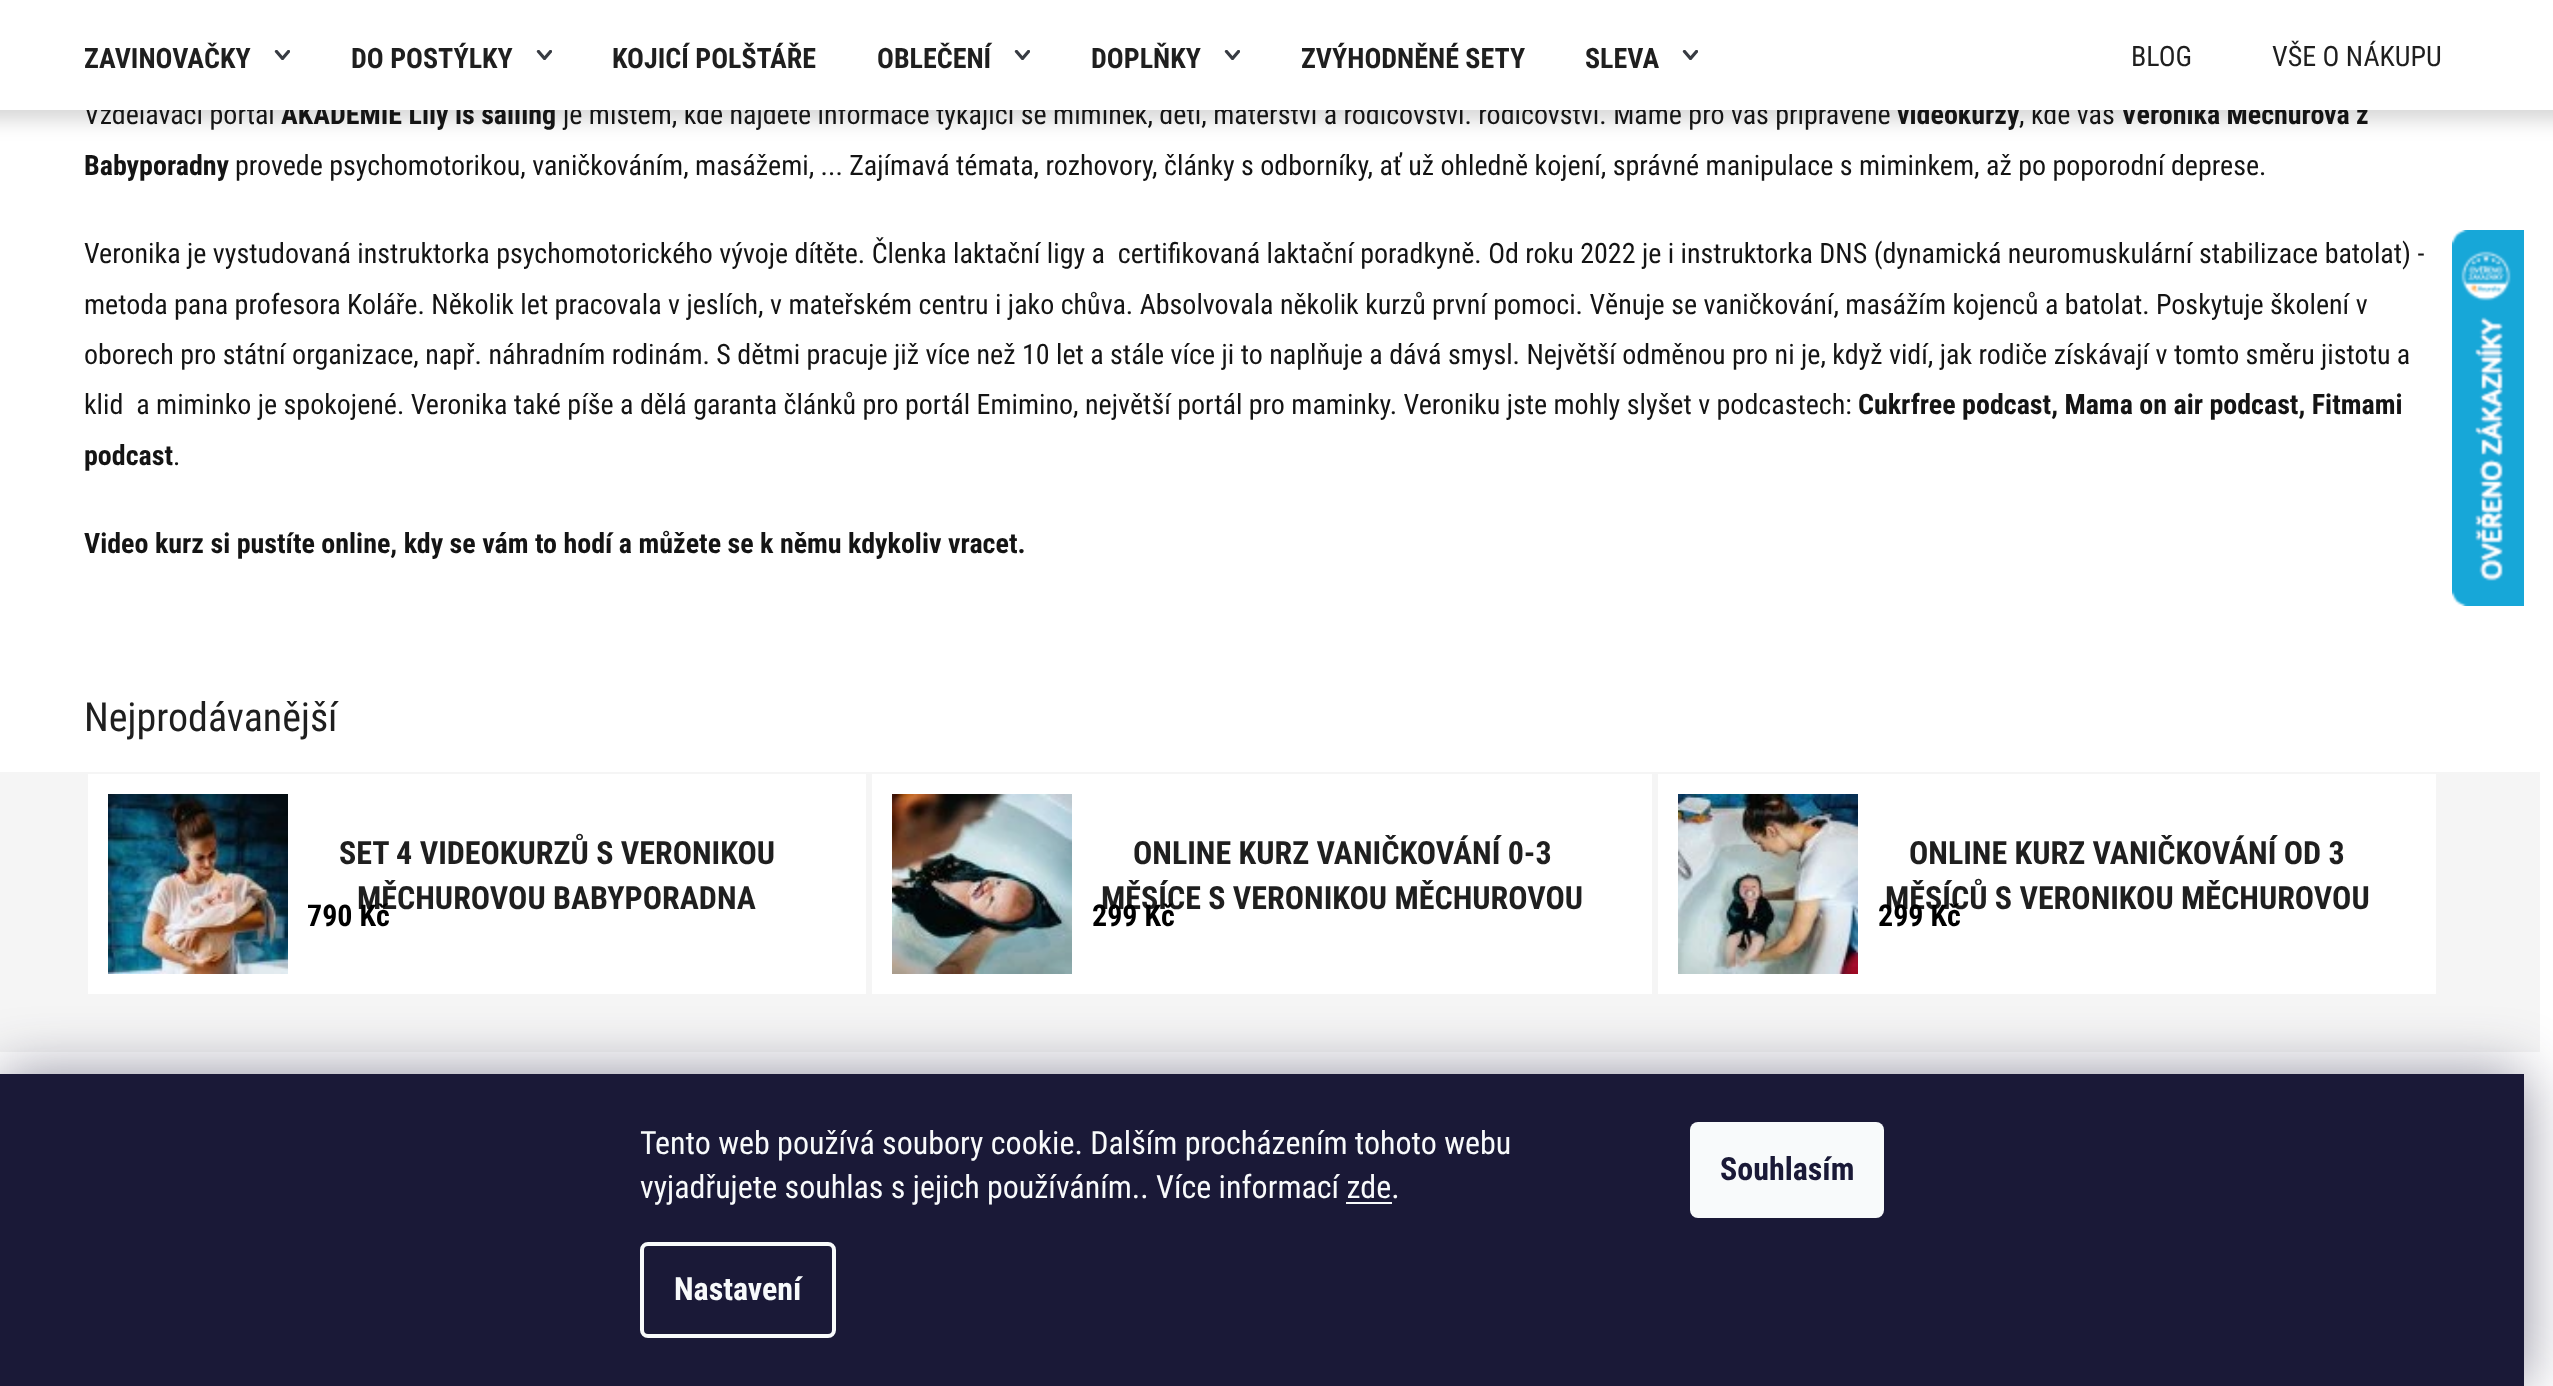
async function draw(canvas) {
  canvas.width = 2553;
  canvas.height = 1386;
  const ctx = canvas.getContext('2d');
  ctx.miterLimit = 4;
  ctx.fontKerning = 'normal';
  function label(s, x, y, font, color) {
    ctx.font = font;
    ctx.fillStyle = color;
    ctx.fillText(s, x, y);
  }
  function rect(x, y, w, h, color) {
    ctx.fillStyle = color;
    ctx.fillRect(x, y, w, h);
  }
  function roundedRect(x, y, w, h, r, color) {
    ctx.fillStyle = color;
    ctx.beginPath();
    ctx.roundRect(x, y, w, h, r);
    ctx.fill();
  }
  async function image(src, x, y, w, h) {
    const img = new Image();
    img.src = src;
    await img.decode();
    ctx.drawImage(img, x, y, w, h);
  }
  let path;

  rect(0, 0, 2553, 1386, '#fff');
  ctx.fillStyle = '#00000029';
  ctx.filter = 'blur(10px)';
  ctx.beginPath();
  ctx.rect(-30, 10, 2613, 110);
  ctx.fill();
  ctx.filter = 'none';
  label('Vzdělávací portál', 84, 124, '28px Roboto Condensed', '#141414');
  label('AKADEMIE Lily is sailing', 281, 124, 'bold 28px Roboto Condensed', '#141414');
  label('je místem, kde najdete informace týkající se miminek, dětí, mateřství a rodičovství. rodičovství. Máme pro vás připravené', 563, 124, '28px Roboto Condensed', '#141414');
  label('videokurzy', 1897, 124, 'bold 28px Roboto Condensed', '#141414');
  label(', kde vás', 2019, 124, '28px Roboto Condensed', '#141414');
  label('Veronika Měchurová z', 2121, 124, 'bold 28px Roboto Condensed', '#141414');
  rect(0, 0, 2553, 110, '#fff');
  label('ZAVINOVAČKY', 84, 68, 'bold 28px Roboto Condensed', '#1f1f1f');
  ctx.save();
  ctx.beginPath();
  ctx.rect(274, 50, 16, 10);
  ctx.clip();
  path = new Path2D('M276.5 51.5L282.5 58.5L288.5 51.5');
  ctx.strokeStyle = '#383c43';
  ctx.lineWidth = 3.3;
  ctx.lineCap = 'round';
  ctx.lineJoin = 'round';
  ctx.stroke(path);
  ctx.restore();
  label('DO POSTÝLKY', 351, 68, 'bold 28px Roboto Condensed', '#1f1f1f');
  ctx.save();
  ctx.beginPath();
  ctx.rect(536, 50, 16, 10);
  ctx.clip();
  path = new Path2D('M538.5 51.5L544.5 58.5L550.5 51.5');
  ctx.strokeStyle = '#383c43';
  ctx.lineWidth = 3.3;
  ctx.lineCap = 'round';
  ctx.lineJoin = 'round';
  ctx.stroke(path);
  ctx.restore();
  label('KOJICÍ POLŠTÁŘE', 612, 68, 'bold 28px Roboto Condensed', '#1f1f1f');
  label('OBLEČENÍ', 877, 68, 'bold 28px Roboto Condensed', '#1f1f1f');
  ctx.save();
  ctx.beginPath();
  ctx.rect(1014, 50, 16, 10);
  ctx.clip();
  path = new Path2D('M1016.5 51.5L1022.5 58.5L1028.5 51.5');
  ctx.strokeStyle = '#383c43';
  ctx.lineWidth = 3.3;
  ctx.lineCap = 'round';
  ctx.lineJoin = 'round';
  ctx.stroke(path);
  ctx.restore();
  label('DOPLŇKY', 1091, 68, 'bold 28px Roboto Condensed', '#1f1f1f');
  ctx.save();
  ctx.beginPath();
  ctx.rect(1224, 50, 16, 10);
  ctx.clip();
  path = new Path2D('M1226.5 51.5L1232.5 58.5L1238.5 51.5');
  ctx.strokeStyle = '#383c43';
  ctx.lineWidth = 3.3;
  ctx.lineCap = 'round';
  ctx.lineJoin = 'round';
  ctx.stroke(path);
  ctx.restore();
  label('ZVÝHODNĚNÉ SETY', 1301, 68, 'bold 28px Roboto Condensed', '#1f1f1f');
  label('SLEVA', 1585, 68, 'bold 28px Roboto Condensed', '#1f1f1f');
  ctx.save();
  ctx.beginPath();
  ctx.rect(1682, 50, 16, 10);
  ctx.clip();
  path = new Path2D('M1684.5 51.5L1690.5 58.5L1696.5 51.5');
  ctx.strokeStyle = '#383c43';
  ctx.lineWidth = 3.3;
  ctx.lineCap = 'round';
  ctx.lineJoin = 'round';
  ctx.stroke(path);
  ctx.restore();
  label('BLOG', 2131, 66, '28px Roboto Condensed', '#1f1f1f');
  label('VŠE O NÁKUPU', 2272, 66, '28px Roboto Condensed', '#1f1f1f');
  label('Babyporadny', 84, 175, 'bold 28px Roboto Condensed', '#141414');
  label('provede psychomotorikou, vaničkováním, masážemi, ... Zajímavá témata, rozhovory, články s odborníky, ať už ohledně kojení, správné manipulace s miminkem, až po poporodní deprese.', 235, 175, '28px Roboto Condensed', '#141414');
  label('Veronika je vystudovaná instruktorka psychomotorického vývoje dítěte. Členka laktační ligy a  certifikovaná laktační poradkyně. Od roku 2022 je i instruktorka DNS (dynamická neuromuskulární stabilizace batolat) -', 84, 263, '28px Roboto Condensed', '#141414');
  label('metoda pana profesora Koláře. Několik let pracovala v jeslích, v mateřském centru i jako chůva. Absolvovala několik kurzů první pomoci. Věnuje se vaničkování, masážím kojenců a batolat. Poskytuje školení v', 84, 314, '28px Roboto Condensed', '#141414');
  label('oborech pro státní organizace, např. náhradním rodinám. S dětmi pracuje již více než 10 let a stále více ji to naplňuje a dává smysl. Největší odměnou pro ni je, když vidí, jak rodiče získávají v tomto směru jistotu a', 84, 364, '28px Roboto Condensed', '#141414');
  label('klid  a miminko je spokojené. Veronika také píše a dělá garanta článků pro portál Emimino, největší portál pro maminky. Veroniku jste mohly slyšet v podcastech:', 84, 414, '28px Roboto Condensed', '#141414');
  label('Cukrfree podcast, Mama on air podcast, Fitmami', 1858, 414, 'bold 28px Roboto Condensed', '#141414');
  label('podcast', 84, 465, 'bold 28px Roboto Condensed', '#141414');
  label('.', 173, 465, '28px Roboto Condensed', '#141414');
  label('Video kurz si pustíte online, kdy se vám to hodí a můžete se k němu kdykoliv vracet.', 84, 553, 'bold 28px Roboto Condensed', '#141414');
  label('Nejprodávanější', 84, 731, '40px Roboto Condensed', '#1f1f1f');
  rect(0, 772, 2540, 280, '#f5f5f5');
  rect(88, 774, 778, 220, '#fff');
  await image('assets/img1.png', 108, 794, 180, 180);
  label('SET 4 VIDEOKURZŮ S VERONIKOU', 339, 864, 'bold 32px Roboto Condensed', '#1f1f1f');
  label('MĚCHUROVOU BABYPORADNA', 357, 909, 'bold 32px Roboto Condensed', '#1f1f1f');
  label('790 Kč', 307, 926, 'bold 30px Roboto Condensed', '#000');
  rect(872, 774, 780, 220, '#fff');
  await image('assets/img2.png', 892, 794, 180, 180);
  label('ONLINE KURZ VANIČKOVÁNÍ 0-3', 1133, 864, 'bold 32px Roboto Condensed', '#1f1f1f');
  label('MĚSÍCE S VERONIKOU MĚCHUROVOU', 1101, 909, 'bold 32px Roboto Condensed', '#1f1f1f');
  label('299 Kč', 1092, 926, 'bold 30px Roboto Condensed', '#000');
  rect(1658, 774, 778, 220, '#fff');
  await image('assets/img3.png', 1678, 794, 180, 180);
  label('ONLINE KURZ VANIČKOVÁNÍ OD 3', 1909, 864, 'bold 32px Roboto Condensed', '#1f1f1f');
  label('MĚSÍCŮ S VERONIKOU MĚCHUROVOU', 1885, 909, 'bold 32px Roboto Condensed', '#1f1f1f');
  label('299 Kč', 1878, 926, 'bold 30px Roboto Condensed', '#000');
  await image('assets/img4.png', 2452, 230, 72, 376);
  ctx.fillStyle = '#1b193980';
  ctx.filter = 'blur(30px)';
  ctx.beginPath();
  ctx.rect(0, 1074, 2524, 312);
  ctx.fill();
  ctx.filter = 'none';
  rect(0, 1074, 2524, 312, '#1a1937');
  label('Tento web používá soubory cookie. Dalším procházením tohoto webu', 640, 1154, '32px Roboto Condensed', '#f8fafb');
  label('vyjadřujete souhlas s jejich používáním.. Více informací zde.', 640, 1198, '32px Roboto Condensed', '#f8fafb');
  rect(1346, 1202, 46, 2, '#f8fafb');
  ctx.beginPath();
  ctx.roundRect(642, 1244, 192, 92, 6);
  ctx.strokeStyle = '#f8fafb';
  ctx.lineWidth = 4;
  ctx.stroke();
  label('Nastavení', 674, 1300, 'bold 32px Roboto Condensed', '#f8fafb');
  roundedRect(1690, 1122, 194, 96, 8, '#f8fafb');
  label('Souhlasím', 1720, 1180, 'bold 32px Roboto Condensed', '#1a1937');
}

draw(document.querySelector('canvas'));
